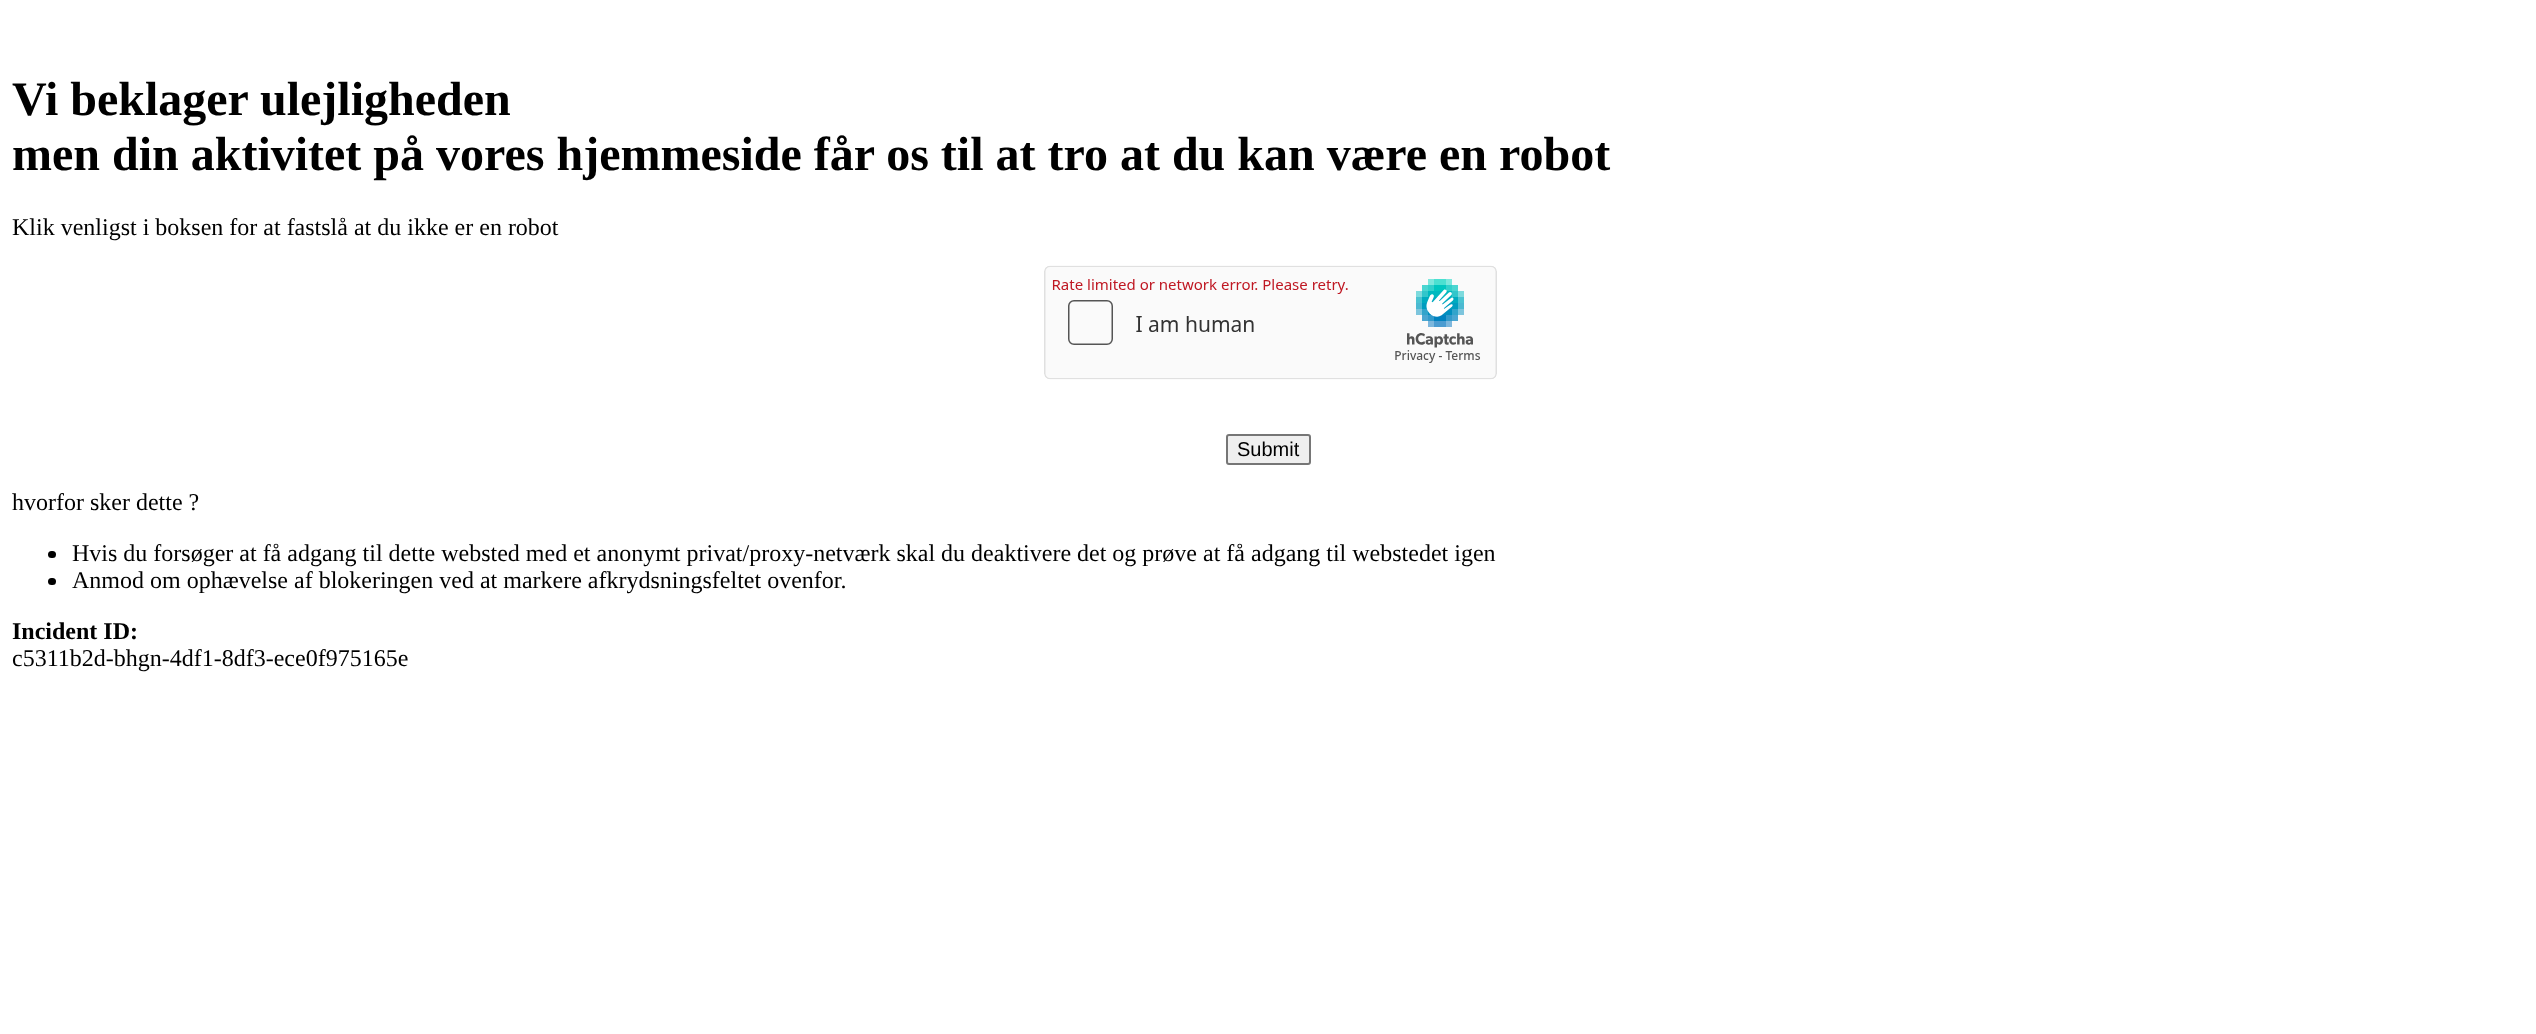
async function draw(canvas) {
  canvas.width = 2536;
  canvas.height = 1034;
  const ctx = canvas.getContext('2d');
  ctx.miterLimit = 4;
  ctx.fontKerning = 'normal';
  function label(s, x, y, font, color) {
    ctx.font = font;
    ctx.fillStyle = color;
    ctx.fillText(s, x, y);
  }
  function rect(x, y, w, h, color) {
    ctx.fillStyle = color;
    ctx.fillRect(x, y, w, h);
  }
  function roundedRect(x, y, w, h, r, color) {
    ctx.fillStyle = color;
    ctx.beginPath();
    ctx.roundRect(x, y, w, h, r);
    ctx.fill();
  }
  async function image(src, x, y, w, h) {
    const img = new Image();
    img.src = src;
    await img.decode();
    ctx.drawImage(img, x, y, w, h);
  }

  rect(0, 0, 2536, 1034, '#fff');
  label('Vi beklager ulejligheden', 12, 115, 'bold 48px Liberation Serif', '#000');
  label('men din aktivitet på vores hjemmeside får os til at tro at du kan være en robot', 12, 170, 'bold 48px Liberation Serif', '#000');
  label('Klik venligst i boksen for at fastslå at du ikke er en robot', 12, 235, '24px Liberation Serif', '#000');
  await image('assets/img1.png', 1044, 265, 453, 115);
  ctx.fillStyle = '#efefef';
  ctx.beginPath();
  ctx.roundRect(1227, 435, 83, 29, 2);
  ctx.fill();
  ctx.strokeStyle = '#767676';
  ctx.lineWidth = 2;
  ctx.stroke();
  label('Submit', 1237, 456, '20px Liberation Sans', '#000');
  label('hvorfor sker dette ?', 12, 510, '24px Liberation Serif', '#000');
  roundedRect(48, 551, 8, 7, 3.5, '#000');
  label('Hvis du forsøger at få adgang til dette websted med et anonymt privat/proxy-netværk skal du deaktivere det og prøve at få adgang til webstedet igen', 72, 561, '24px Liberation Serif', '#000');
  roundedRect(48, 578, 8, 7, 3.5, '#000');
  label('Anmod om ophævelse af blokeringen ved at markere afkrydsningsfeltet ovenfor.', 72, 588, '24px Liberation Serif', '#000');
  label('Incident ID:', 12, 639, 'bold 24px Liberation Serif', '#000');
  label('c5311b2d-bhgn-4df1-8df3-ece0f975165e', 12, 666, '24px Liberation Serif', '#000');
}

draw(document.querySelector('canvas'));
